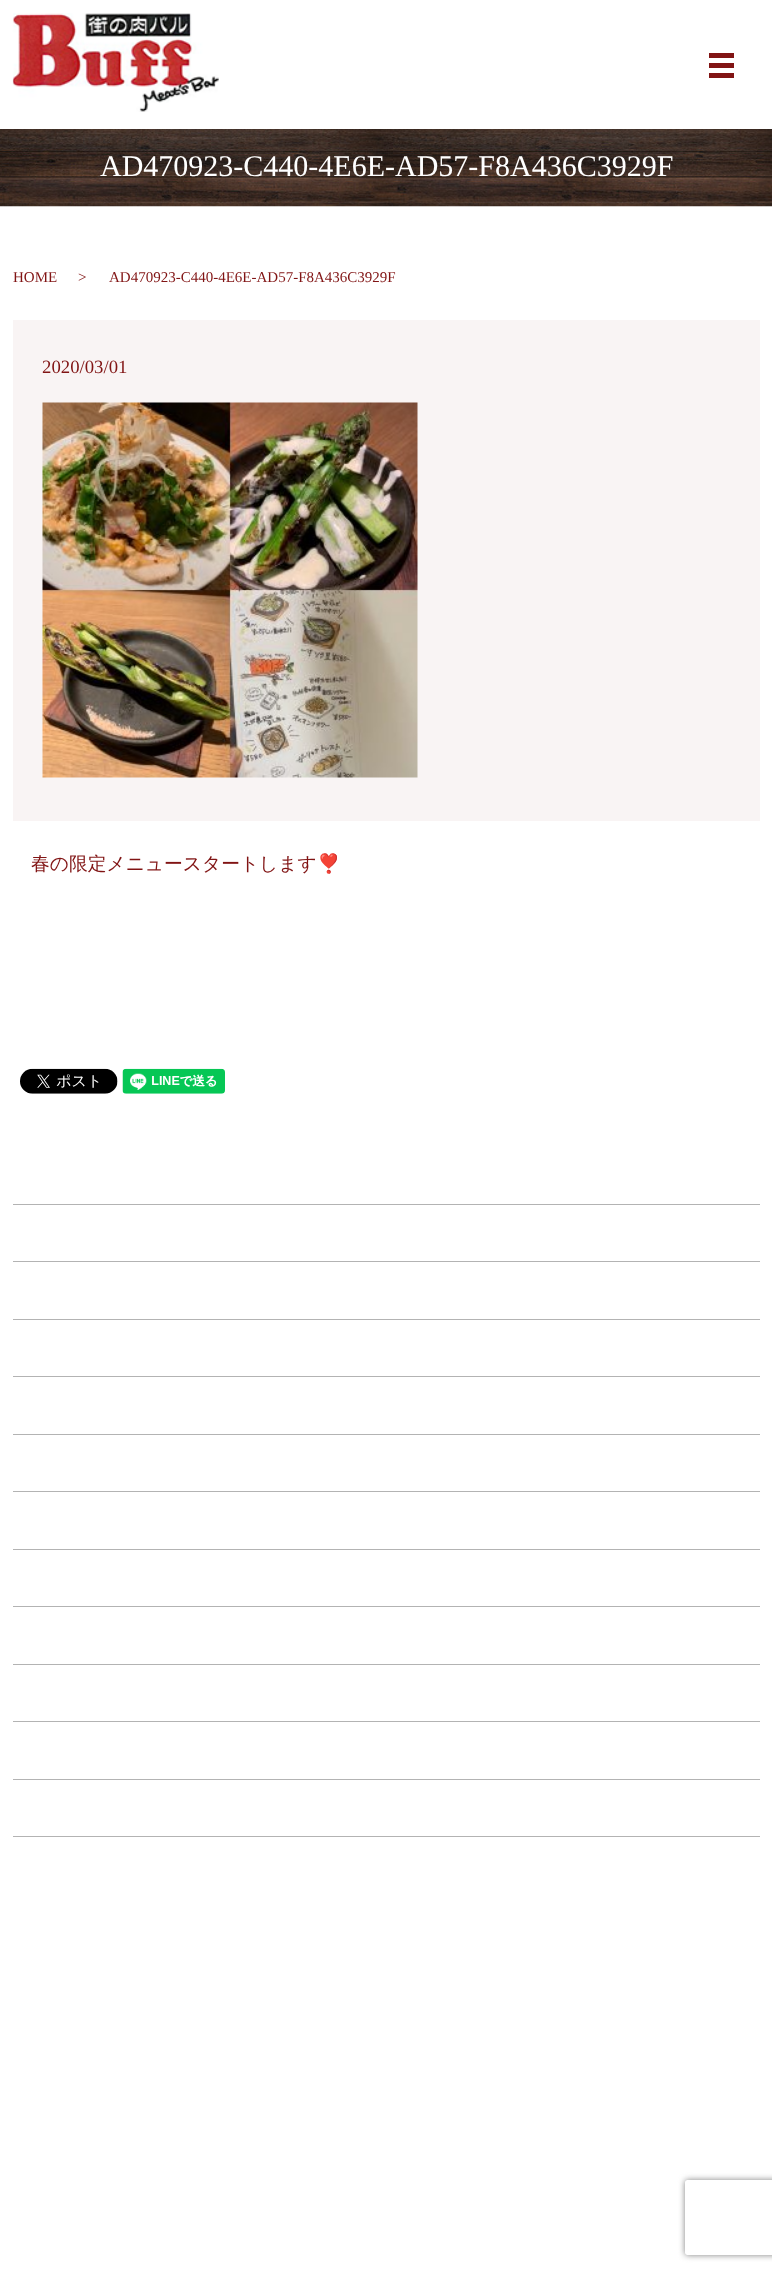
async function draw(canvas) {
  canvas.width = 772;
  canvas.height = 2272;
  const ctx = canvas.getContext('2d');
  ctx.miterLimit = 4;
  ctx.fontKerning = 'normal';
  function label(s, x, y, font, color) {
    ctx.font = font;
    ctx.fillStyle = color;
    ctx.fillText(s, x, y);
  }
  function rect(x, y, w, h, color) {
    ctx.fillStyle = color;
    ctx.fillRect(x, y, w, h);
  }
  async function image(src, x, y, w, h) {
    const img = new Image();
    img.src = src;
    await img.decode();
    ctx.drawImage(img, x, y, w, h);
  }
  let path;

  rect(0, 0, 772, 2272, '#fff');
  await image('assets/img1.png', 12, 13, 207, 99);
  rect(709, 53, 25, 5, '#811414');
  rect(709, 63, 25, 5, '#811414');
  rect(709, 73, 25, 5, '#811414');
  await image('assets/img2.png', 0, 129, 772, 78);
  label('AD470923-C440-4E6E-AD57-F8A436C3929F', 100, 176, '30px Liberation Serif', '#fff');
  label('HOME', 13, 282, '15px Liberation Serif', '#811414');
  label('>', 78, 282, '15px Liberation Serif', '#811414');
  label('AD470923-C440-4E6E-AD57-F8A436C3929F', 109, 282, '15px Liberation Serif', '#811414');
  rect(13, 320, 747, 501, '#f9f4f4');
  label('2020/03/01', 42, 373, '18.75px Liberation Serif', '#811414');
  await image('assets/img3.png', 42, 402, 376, 376);
  label('春の限定メニュースタートします', 31, 870, '500 18.75px WenQuanYi Zen Hei', '#811414');
  label('❣️', 317, 870, '18.75px Noto Color Emoji', '#811414');
  await image('assets/img4.png', 20, 1068, 98, 26);
  await image('assets/img5.png', 122, 1068, 103, 26);
  rect(13, 1204, 747, 1, '#b3b3b3');
  rect(13, 1261, 747, 1, '#b3b3b3');
  rect(13, 1319, 747, 1, '#b3b3b3');
  rect(13, 1376, 747, 1, '#b3b3b3');
  rect(13, 1434, 747, 1, '#b3b3b3');
  rect(13, 1491, 747, 1, '#b3b3b3');
  rect(13, 1549, 747, 1, '#b3b3b3');
  rect(13, 1606, 747, 1, '#b3b3b3');
  rect(13, 1664, 747, 1, '#b3b3b3');
  rect(13, 1721, 747, 1, '#b3b3b3');
  rect(13, 1779, 747, 1, '#b3b3b3');
  rect(13, 1836, 747, 1, '#b3b3b3');
  ctx.save();
  path = new Path2D('M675 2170H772V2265H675ZM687.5 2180H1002.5C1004 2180 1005 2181 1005 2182.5V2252.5C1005 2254 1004 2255 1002.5 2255H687.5C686 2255 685 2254 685 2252.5V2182.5C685 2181 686 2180 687.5 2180Z');
  ctx.clip(path, 'evenodd');
  ctx.fillStyle = '#808080';
  ctx.filter = 'blur(3px)';
  ctx.beginPath();
  ctx.roundRect(685, 2180, 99, 75, 2.5);
  ctx.fill();
  ctx.filter = 'none';
  ctx.restore();
}

draw(document.querySelector('canvas'));
